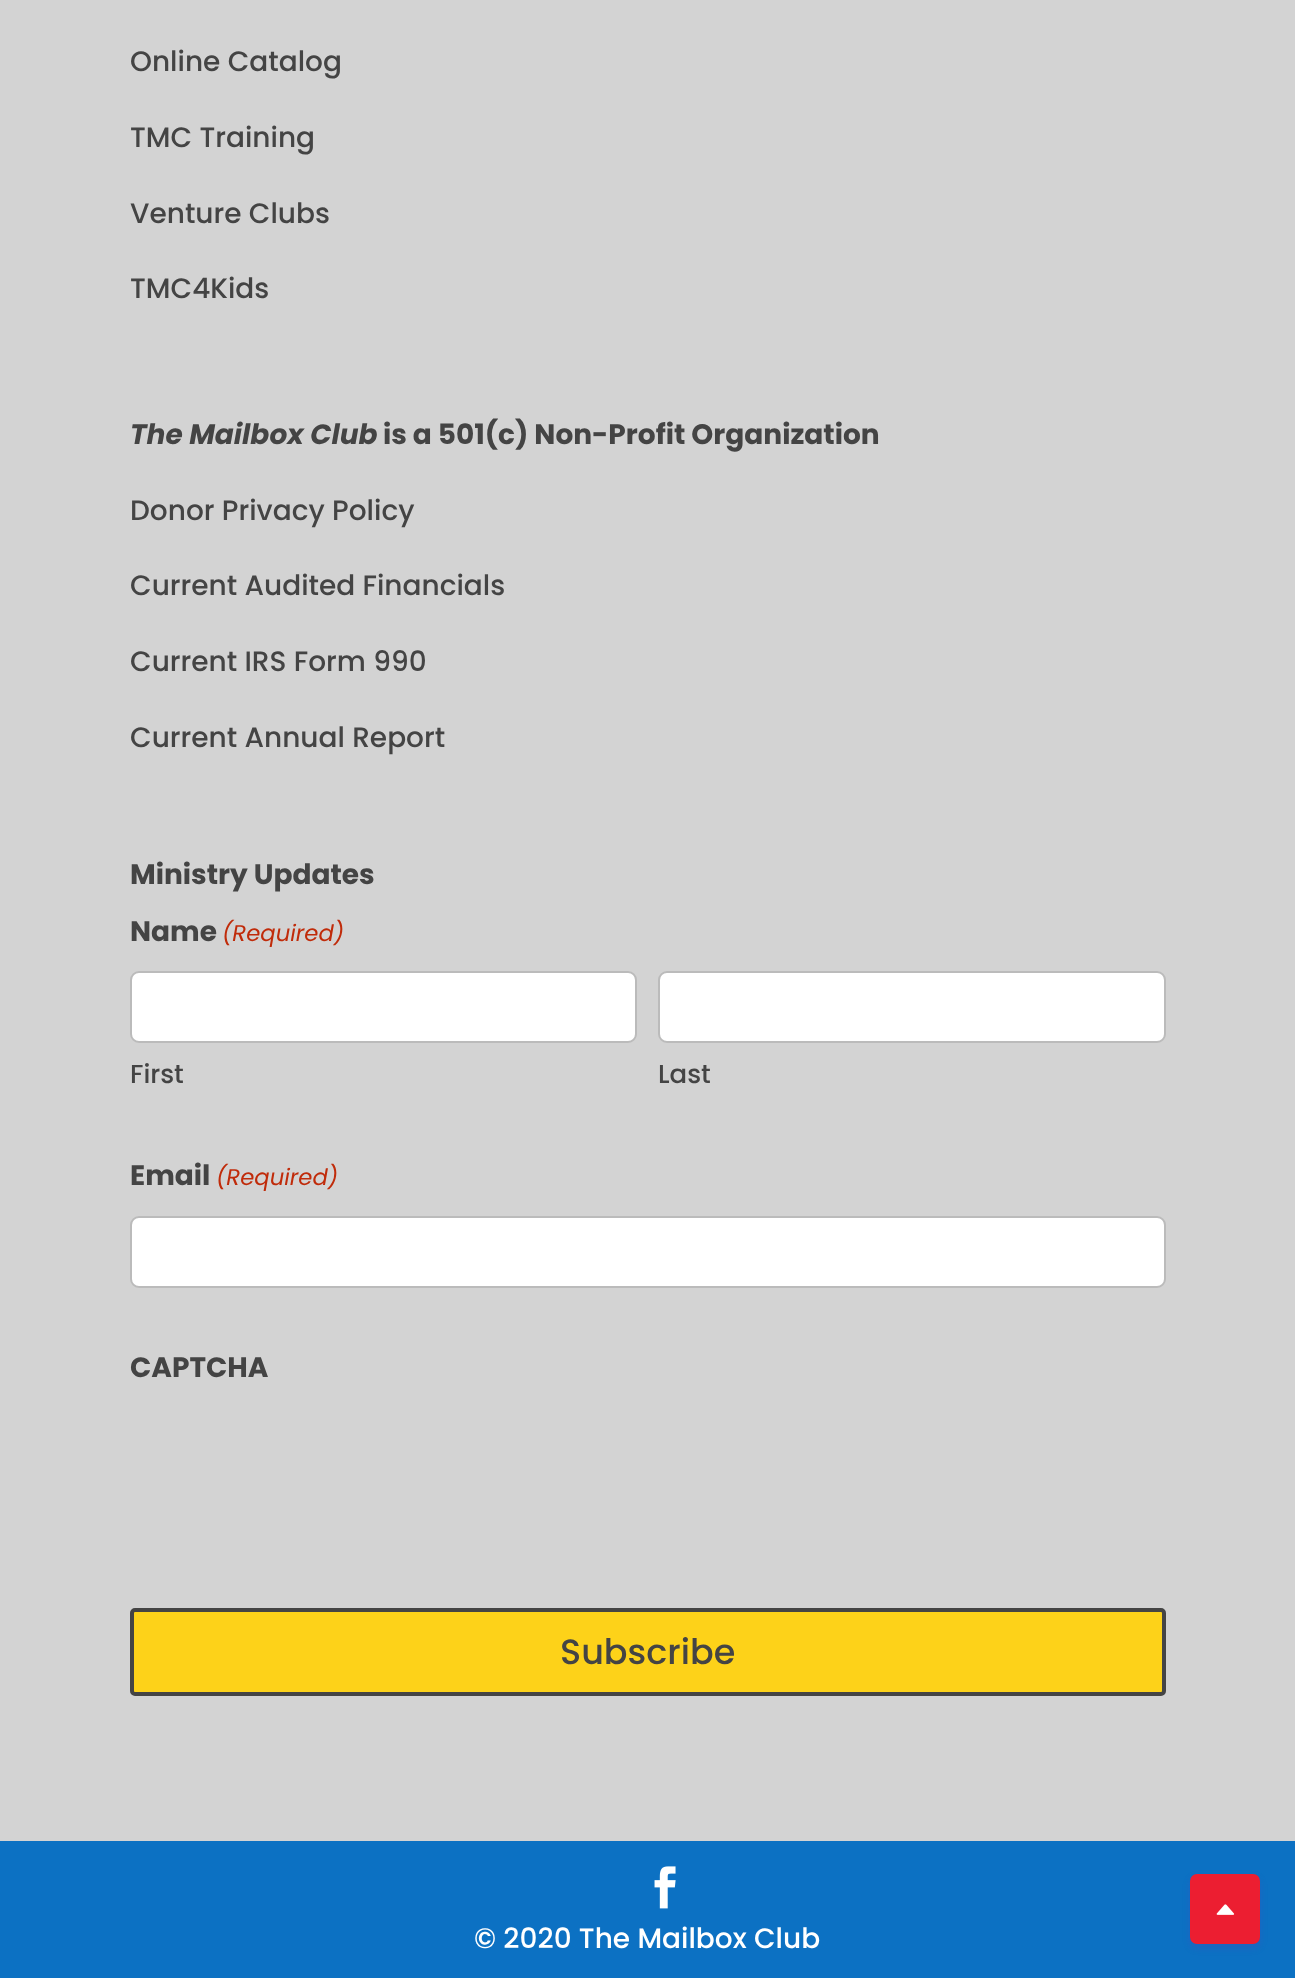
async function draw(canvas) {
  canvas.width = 1295;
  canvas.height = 1978;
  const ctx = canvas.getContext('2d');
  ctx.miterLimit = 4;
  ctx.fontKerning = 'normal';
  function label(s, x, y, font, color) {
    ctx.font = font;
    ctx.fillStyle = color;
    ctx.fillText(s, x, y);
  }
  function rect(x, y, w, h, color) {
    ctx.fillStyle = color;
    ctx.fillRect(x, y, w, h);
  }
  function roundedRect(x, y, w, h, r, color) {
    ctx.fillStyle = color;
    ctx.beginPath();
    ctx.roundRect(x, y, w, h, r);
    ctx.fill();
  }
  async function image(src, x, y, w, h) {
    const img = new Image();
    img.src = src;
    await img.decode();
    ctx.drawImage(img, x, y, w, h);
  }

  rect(0, 0, 1295, 1978, '#d3d3d3');
  label('Online Catalog', 130, 71, '500 28px Poppins', '#444');
  label('TMC Training', 130, 147, '500 28px Poppins', '#444');
  label('Venture Clubs', 130, 223, '500 28px Poppins', '#444');
  label('TMC4Kids', 130, 298, '500 28px Poppins', '#444');
  label('The Mailbox Club', 130, 444, 'italic bold 28px Poppins', '#444');
  label('is a 501(c) Non-Profit Organization', 383, 444, 'bold 28px Poppins', '#444');
  label('Donor Privacy Policy', 130, 520, '500 28px Poppins', '#444');
  label('Current Audited Financials', 130, 595, '500 28px Poppins', '#444');
  label('Current IRS Form 990', 130, 671, '500 28px Poppins', '#444');
  label('Current Annual Report', 130, 747, '500 28px Poppins', '#444');
  label('Ministry Updates', 130, 884, 'bold 28px Poppins', '#444');
  label('Name', 130, 941, 'bold 28px Poppins', '#444');
  label('(Required)', 222, 941, 'italic 22.75px Poppins', '#c02b0a');
  ctx.fillStyle = '#fff';
  ctx.beginPath();
  ctx.roundRect(131, 972, 505, 70, 8);
  ctx.fill();
  ctx.strokeStyle = '#bbb';
  ctx.lineWidth = 2;
  ctx.stroke();
  label('First', 130, 1083, '500 26px Poppins', '#444');
  ctx.fillStyle = '#fff';
  ctx.beginPath();
  ctx.roundRect(659, 972, 506, 70, 8);
  ctx.fill();
  ctx.stroke();
  label('Last', 658, 1083, '500 26px Poppins', '#444');
  label('Email', 130, 1185, 'bold 28px Poppins', '#444');
  label('(Required)', 216, 1185, 'italic 22.75px Poppins', '#c02b0a');
  ctx.fillStyle = '#fff';
  ctx.beginPath();
  ctx.roundRect(131, 1217, 1034, 70, 8);
  ctx.fill();
  ctx.stroke();
  label('CAPTCHA', 130, 1377, 'bold 28px Poppins', '#444');
  ctx.fillStyle = '#fdd219';
  ctx.beginPath();
  ctx.roundRect(132, 1610, 1032, 84, 3);
  ctx.fill();
  ctx.strokeStyle = '#444';
  ctx.lineWidth = 4;
  ctx.stroke();
  label('Subscribe', 560, 1664, '500 35px Poppins', '#444');
  rect(0, 1841, 1295, 137, '#0c71c3');
  await image('assets/img1.png', 654, 1866, 22, 43);
  label('© 2020 The Mailbox Club', 474, 1948, '500 28px Poppins', '#fff');
  ctx.fillStyle = '#6c2eb933';
  ctx.filter = 'blur(3.5px)';
  ctx.beginPath();
  ctx.roundRect(1190, 1878, 70, 70, 7);
  ctx.fill();
  ctx.filter = 'none';
  roundedRect(1190, 1874, 70, 70, 7, '#ec1e31');
  await image('assets/img2.png', 1216, 1904, 19, 11);
}

draw(document.querySelector('canvas'));
